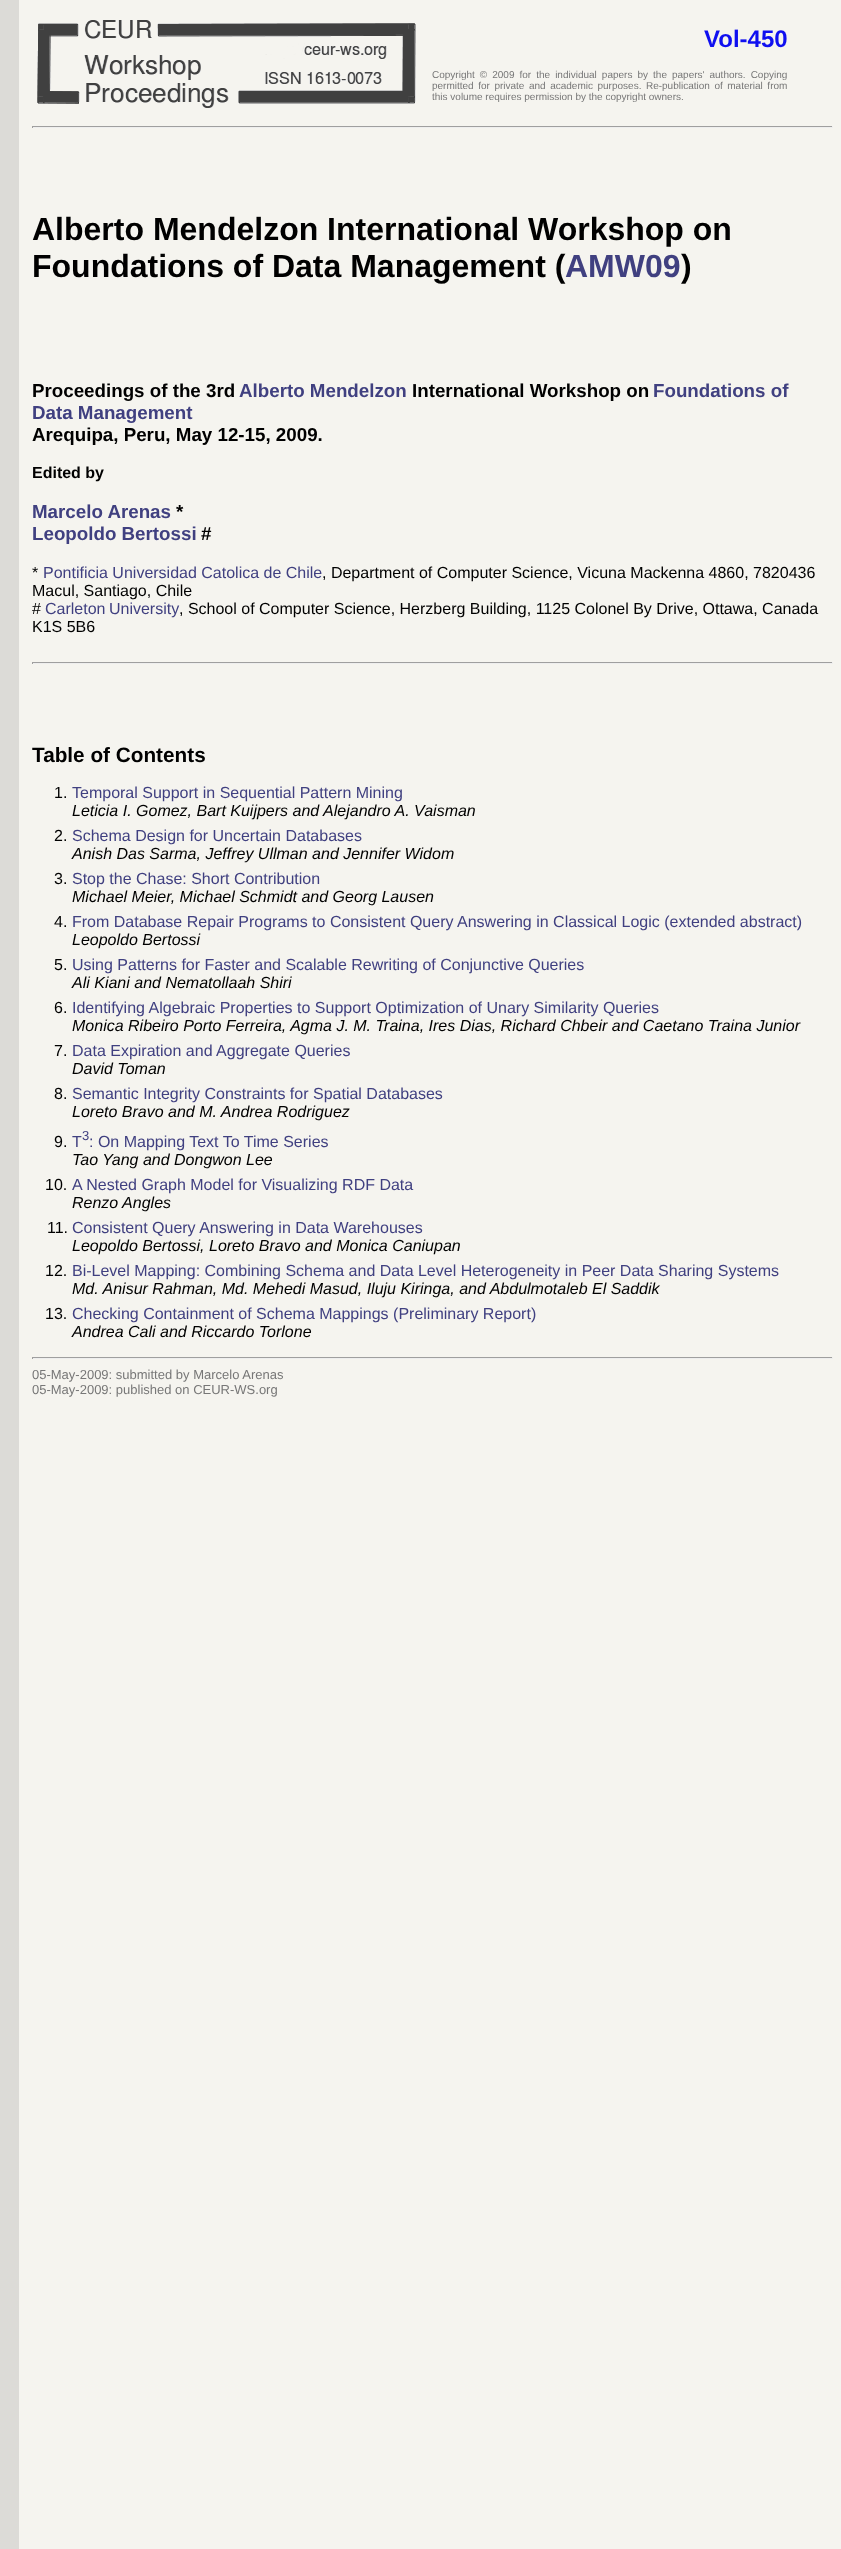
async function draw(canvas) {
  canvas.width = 841;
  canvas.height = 2549;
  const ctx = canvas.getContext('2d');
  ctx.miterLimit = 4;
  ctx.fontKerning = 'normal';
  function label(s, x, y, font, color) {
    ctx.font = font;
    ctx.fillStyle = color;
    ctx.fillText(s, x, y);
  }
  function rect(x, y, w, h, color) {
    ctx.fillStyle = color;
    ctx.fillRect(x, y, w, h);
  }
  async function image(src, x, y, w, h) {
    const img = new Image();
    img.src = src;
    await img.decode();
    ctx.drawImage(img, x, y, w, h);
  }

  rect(0, 0, 841, 2549, '#fff');
  await image('assets/img1.png', 0, 0, 841, 2549);
  await image('assets/img2.png', 37, 20, 379, 88);
  label('Vol-450', 704, 47, 'bold 24px Liberation Sans', '#0f0ff0');
  ctx.wordSpacing = '2.25px';
  label('Copyright © 2009 for the individual papers by the papers\' authors. Copying', 432, 78, '10px Liberation Sans', '#777');
  ctx.wordSpacing = '1.75px';
  label('permitted for private and academic purposes. Re-publication of material from', 432, 89, '10px Liberation Sans', '#777');
  ctx.wordSpacing = '0px';
  label('this volume requires permission by the copyright owners.', 432, 100, '10px Liberation Sans', '#777');
  rect(32, 126, 801, 1, '#9f9f9f');
  rect(832, 126, 1, 2, '#eee');
  rect(32, 127, 801, 1, '#eee');
  rect(32, 126, 1, 2, '#9f9f9f');
  label('Alberto Mendelzon International Workshop on', 32, 240, 'bold 32px Liberation Sans', '#000');
  label('Foundations of Data Management (', 32, 277, 'bold 32px Liberation Sans', '#000');
  label('AMW09', 565, 277, 'bold 32px Liberation Sans', '#404080');
  label(')', 681, 277, 'bold 32px Liberation Sans', '#000');
  label('Proceedings of the 3rd', 32, 397, 'bold 18.75px Liberation Sans', '#000');
  label('Alberto Mendelzon', 239, 397, 'bold 18.75px Liberation Sans', '#404080');
  label('International Workshop on', 412, 397, 'bold 18.75px Liberation Sans', '#000');
  label('Foundations of', 653, 397, 'bold 18.75px Liberation Sans', '#404080');
  label('Data Management', 32, 419, 'bold 18.75px Liberation Sans', '#404080');
  label('Arequipa, Peru, May 12-15, 2009.', 32, 441, 'bold 18.75px Liberation Sans', '#000');
  label('Edited by', 32, 478, 'bold 16px Liberation Sans', '#000');
  label('Marcelo Arenas', 32, 518, 'bold 18.75px Liberation Sans', '#404080');
  label('*', 176, 518, 'bold 18.75px Liberation Sans', '#000');
  label('Leopoldo Bertossi', 32, 540, 'bold 18.75px Liberation Sans', '#404080');
  label('#', 201, 540, 'bold 18.75px Liberation Sans', '#000');
  label('*', 32, 578, '16px Liberation Sans', '#000');
  label('Pontificia Universidad Catolica de Chile', 43, 578, '16px Liberation Sans', '#404080');
  label(', Department of Computer Science, Vicuna Mackenna 4860, 7820436', 322, 578, '16px Liberation Sans', '#000');
  label('Macul, Santiago, Chile', 32, 596, '16px Liberation Sans', '#000');
  label('#', 32, 614, '16px Liberation Sans', '#000');
  ctx.wordSpacing = '-1px';
  label('Carleton University', 45, 614, '16px Liberation Sans', '#404080');
  ctx.wordSpacing = '0px';
  label(', School of Computer Science, Herzberg Building, 1125 Colonel By Drive, Ottawa, Canada', 179, 614, '16px Liberation Sans', '#000');
  label('K1S 5B6', 32, 632, '16px Liberation Sans', '#000');
  rect(32, 662, 801, 1, '#9f9f9f');
  rect(832, 662, 1, 2, '#eee');
  rect(32, 663, 801, 1, '#eee');
  rect(32, 662, 1, 2, '#9f9f9f');
  label('Table of Contents', 32, 762, 'bold 20.75px Liberation Sans', '#000');
  label('1.', 54, 798, '16px Liberation Sans', '#000');
  label('Temporal Support in Sequential Pattern Mining', 72, 798, '16px Liberation Sans', '#404080');
  label('Leticia I. Gomez, Bart Kuijpers and Alejandro A. Vaisman', 72, 816, 'italic 16px Liberation Sans', '#000');
  label('2.', 54, 841, '16px Liberation Sans', '#000');
  label('Schema Design for Uncertain Databases', 72, 841, '16px Liberation Sans', '#404080');
  label('Anish Das Sarma, Jeffrey Ullman and Jennifer Widom', 72, 859, 'italic 16px Liberation Sans', '#000');
  label('3.', 54, 884, '16px Liberation Sans', '#000');
  label('Stop the Chase: Short Contribution', 72, 884, '16px Liberation Sans', '#404080');
  label('Michael Meier, Michael Schmidt and Georg Lausen', 72, 902, 'italic 16px Liberation Sans', '#000');
  label('4.', 54, 927, '16px Liberation Sans', '#000');
  label('From Database Repair Programs to Consistent Query Answering in Classical Logic (extended abstract)', 72, 927, '16px Liberation Sans', '#404080');
  label('Leopoldo Bertossi', 72, 945, 'italic 16px Liberation Sans', '#000');
  label('5.', 54, 970, '16px Liberation Sans', '#000');
  label('Using Patterns for Faster and Scalable Rewriting of Conjunctive Queries', 72, 970, '16px Liberation Sans', '#404080');
  label('Ali Kiani and Nematollaah Shiri', 72, 988, 'italic 16px Liberation Sans', '#000');
  label('6.', 54, 1013, '16px Liberation Sans', '#000');
  label('Identifying Algebraic Properties to Support Optimization of Unary Similarity Queries', 72, 1013, '16px Liberation Sans', '#404080');
  label('Monica Ribeiro Porto Ferreira, Agma J. M. Traina, Ires Dias, Richard Chbeir and Caetano Traina Junior', 72, 1031, 'italic 16px Liberation Sans', '#000');
  label('7.', 54, 1056, '16px Liberation Sans', '#000');
  label('Data Expiration and Aggregate Queries', 72, 1056, '16px Liberation Sans', '#404080');
  label('David Toman', 72, 1074, 'italic 16px Liberation Sans', '#000');
  label('8.', 54, 1099, '16px Liberation Sans', '#000');
  label('Semantic Integrity Constraints for Spatial Databases', 72, 1099, '16px Liberation Sans', '#404080');
  label('Loreto Bravo and M. Andrea Rodriguez', 72, 1117, 'italic 16px Liberation Sans', '#000');
  label('9.', 54, 1147, '16px Liberation Sans', '#000');
  label('T', 72, 1147, '16px Liberation Sans', '#404080');
  label('3', 82, 1140, '13px Liberation Sans', '#404080');
  label(': On Mapping Text To Time Series', 89, 1147, '16px Liberation Sans', '#404080');
  label('Tao Yang and Dongwon Lee', 72, 1165, 'italic 16px Liberation Sans', '#000');
  label('10.', 45, 1190, '16px Liberation Sans', '#000');
  label('A Nested Graph Model for Visualizing RDF Data', 72, 1190, '16px Liberation Sans', '#404080');
  label('Renzo Angles', 72, 1208, 'italic 16px Liberation Sans', '#000');
  label('11.', 47, 1233, '16px Liberation Sans', '#000');
  label('Consistent Query Answering in Data Warehouses', 72, 1233, '16px Liberation Sans', '#404080');
  label('Leopoldo Bertossi, Loreto Bravo and Monica Caniupan', 72, 1251, 'italic 16px Liberation Sans', '#000');
  label('12.', 45, 1276, '16px Liberation Sans', '#000');
  label('Bi-Level Mapping: Combining Schema and Data Level Heterogeneity in Peer Data Sharing Systems', 72, 1276, '16px Liberation Sans', '#404080');
  label('Md. Anisur Rahman, Md. Mehedi Masud, Iluju Kiringa, and Abdulmotaleb El Saddik', 72, 1294, 'italic 16px Liberation Sans', '#000');
  label('13.', 45, 1319, '16px Liberation Sans', '#000');
  label('Checking Containment of Schema Mappings (Preliminary Report)', 72, 1319, '16px Liberation Sans', '#404080');
  label('Andrea Cali and Riccardo Torlone', 72, 1337, 'italic 16px Liberation Sans', '#000');
  rect(32, 1357, 801, 1, '#9f9f9f');
  rect(832, 1357, 1, 2, '#eee');
  rect(32, 1358, 801, 1, '#eee');
  rect(32, 1357, 1, 2, '#9f9f9f');
  label('05-May-2009: submitted by Marcelo Arenas', 32, 1379, '13px Liberation Sans', '#777');
  label('05-May-2009: published on CEUR-WS.org', 32, 1394, '13px Liberation Sans', '#777');
}

draw(document.querySelector('canvas'));
